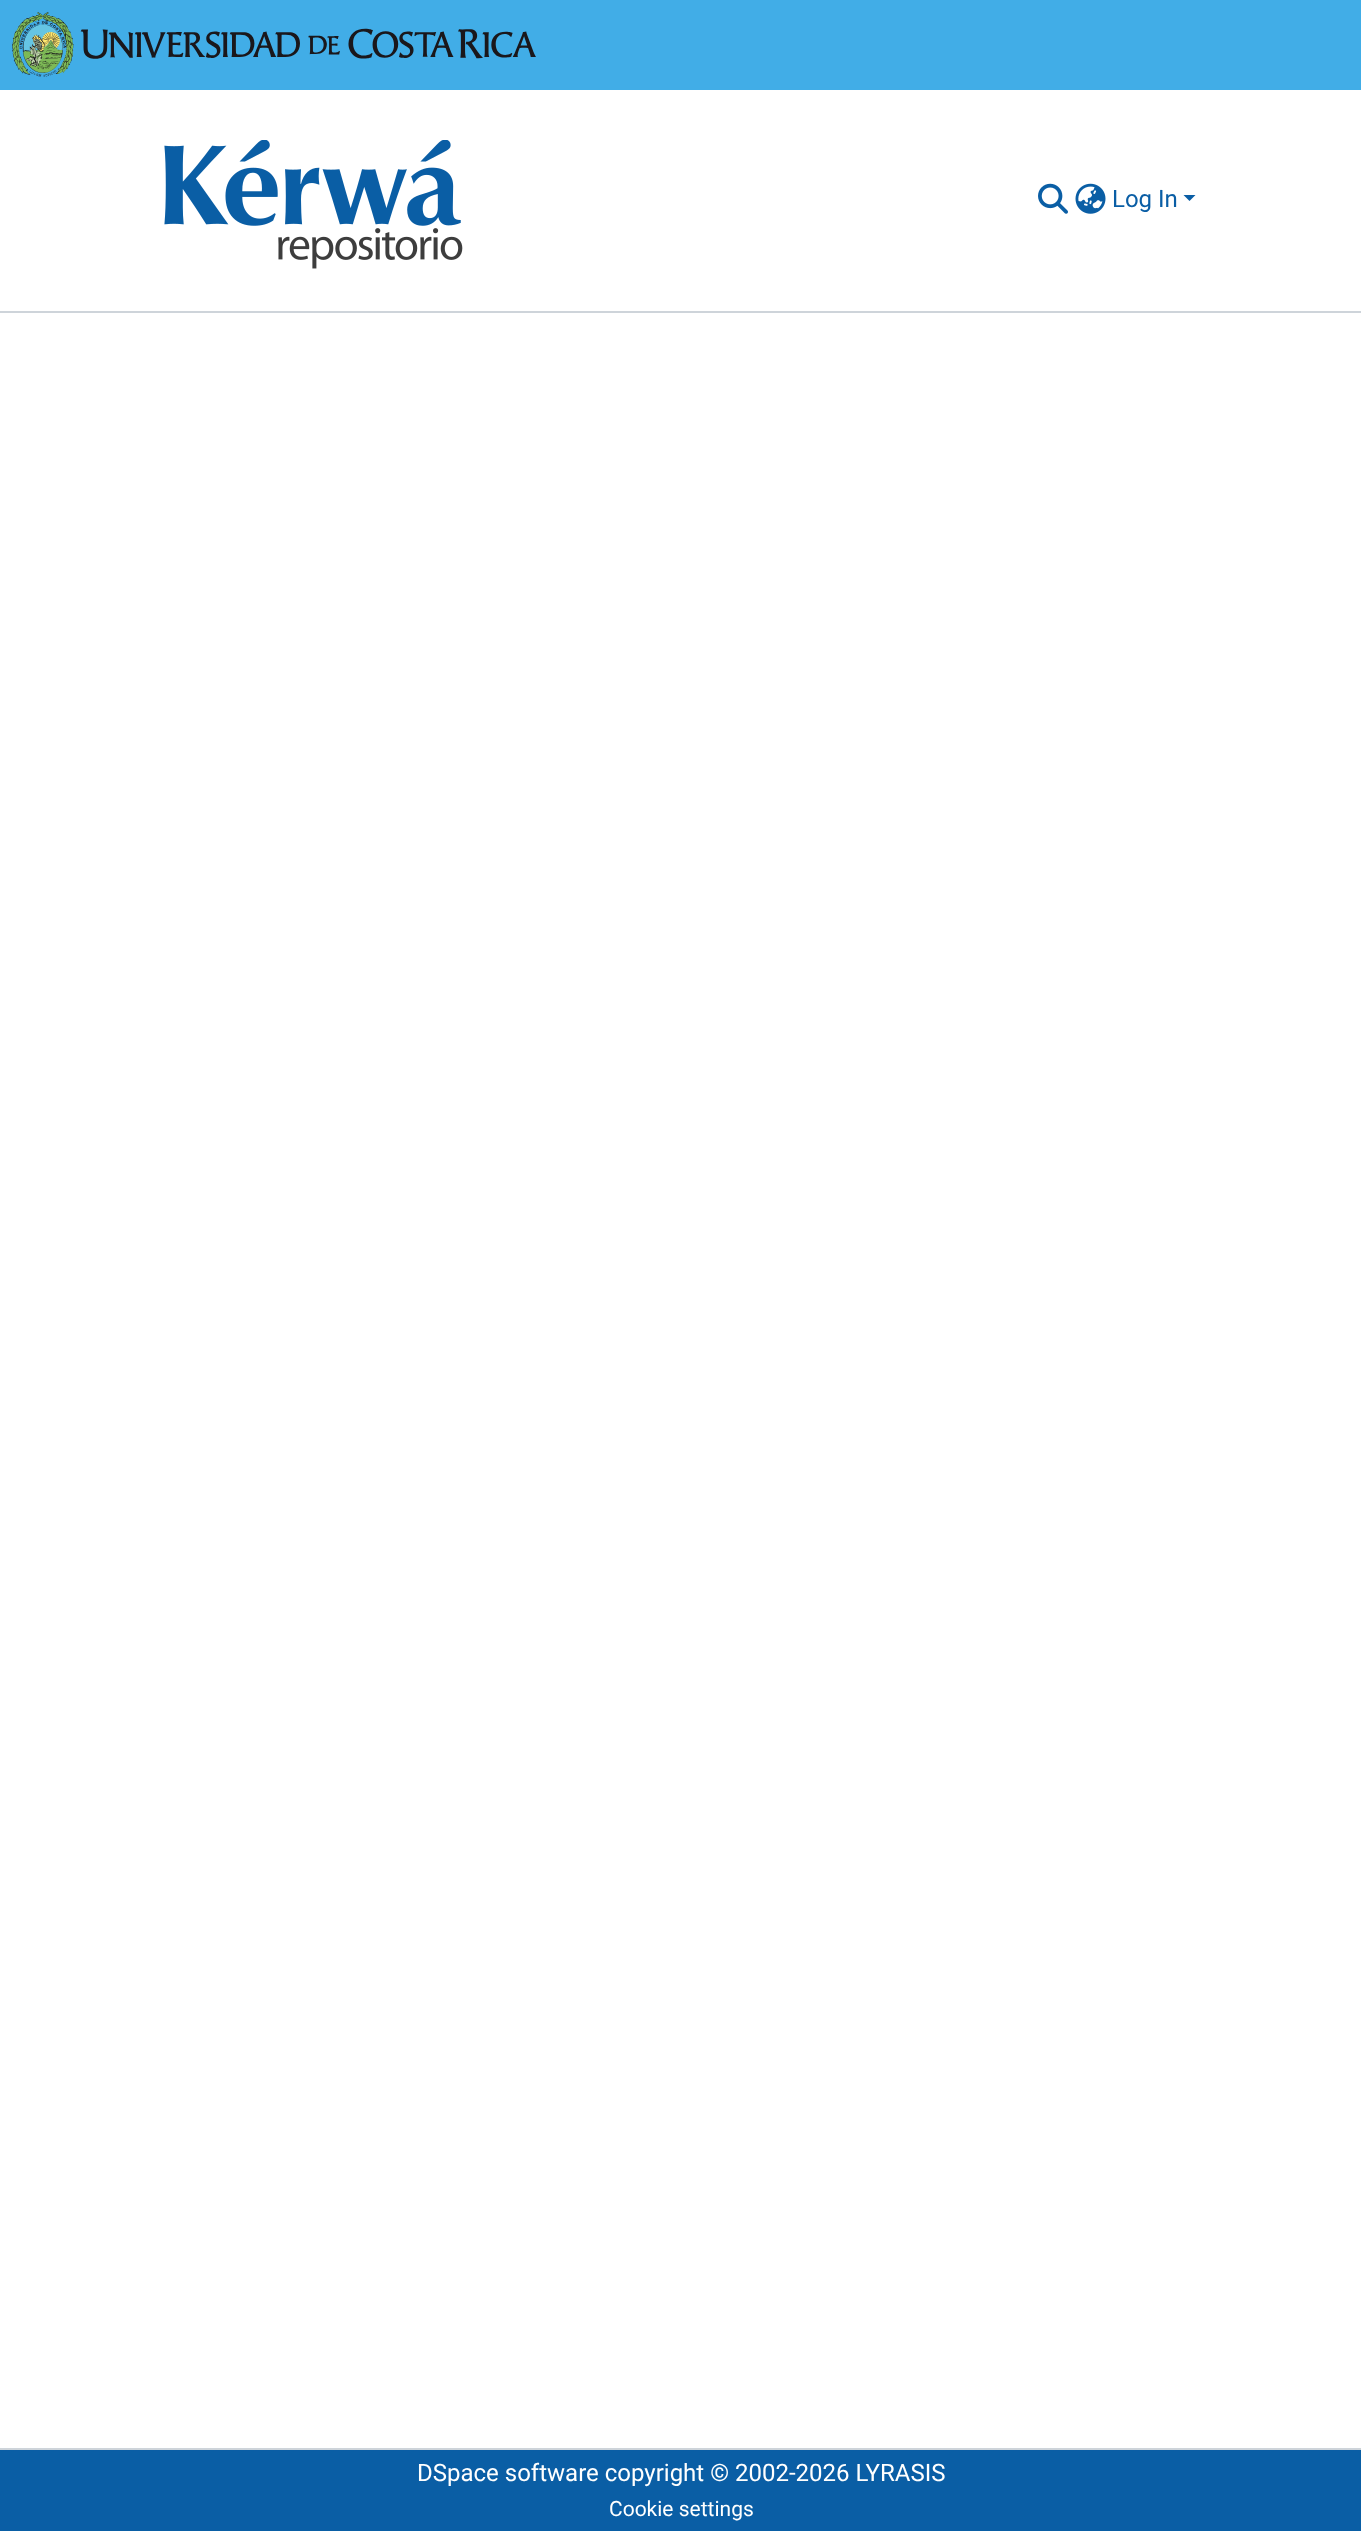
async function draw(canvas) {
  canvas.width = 1361;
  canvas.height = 2531;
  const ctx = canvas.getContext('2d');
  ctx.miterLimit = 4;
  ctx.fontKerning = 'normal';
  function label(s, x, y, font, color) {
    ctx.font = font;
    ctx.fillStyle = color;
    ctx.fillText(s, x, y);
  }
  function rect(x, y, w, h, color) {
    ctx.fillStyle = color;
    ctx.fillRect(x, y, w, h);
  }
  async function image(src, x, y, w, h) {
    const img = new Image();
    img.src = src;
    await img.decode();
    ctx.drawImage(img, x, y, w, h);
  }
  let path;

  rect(0, 0, 1361, 2531, '#fff');
  rect(0, 311, 1361, 2, '#ced4da');
  rect(0, 0, 1361, 90, '#41ade7');
  await image('assets/img1.png', 12, 12, 524, 65);
  await image('assets/img2.png', 164, 140, 299, 129);
  await image('assets/img3.png', 1038, 183, 30, 31);
  await image('assets/img4.png', 1075, 183, 31, 31);
  label('Log In', 1112, 207, '24px Roboto', '#0a5ea5');
  path = new Path2D('M1183.5 195H1195.5L1189.5 201Z');
  ctx.fill(path);
  rect(0, 2450, 1361, 81, '#0a5ea5');
  rect(0, 2448, 1361, 2, '#ced4da');
  label('DSpace software copyright © 2002-2026 LYRASIS', 417, 2481, '24px Roboto', '#fff');
  label('Cookie settings', 609, 2516, '21px Roboto', '#fff');
}

draw(document.querySelector('canvas'));
